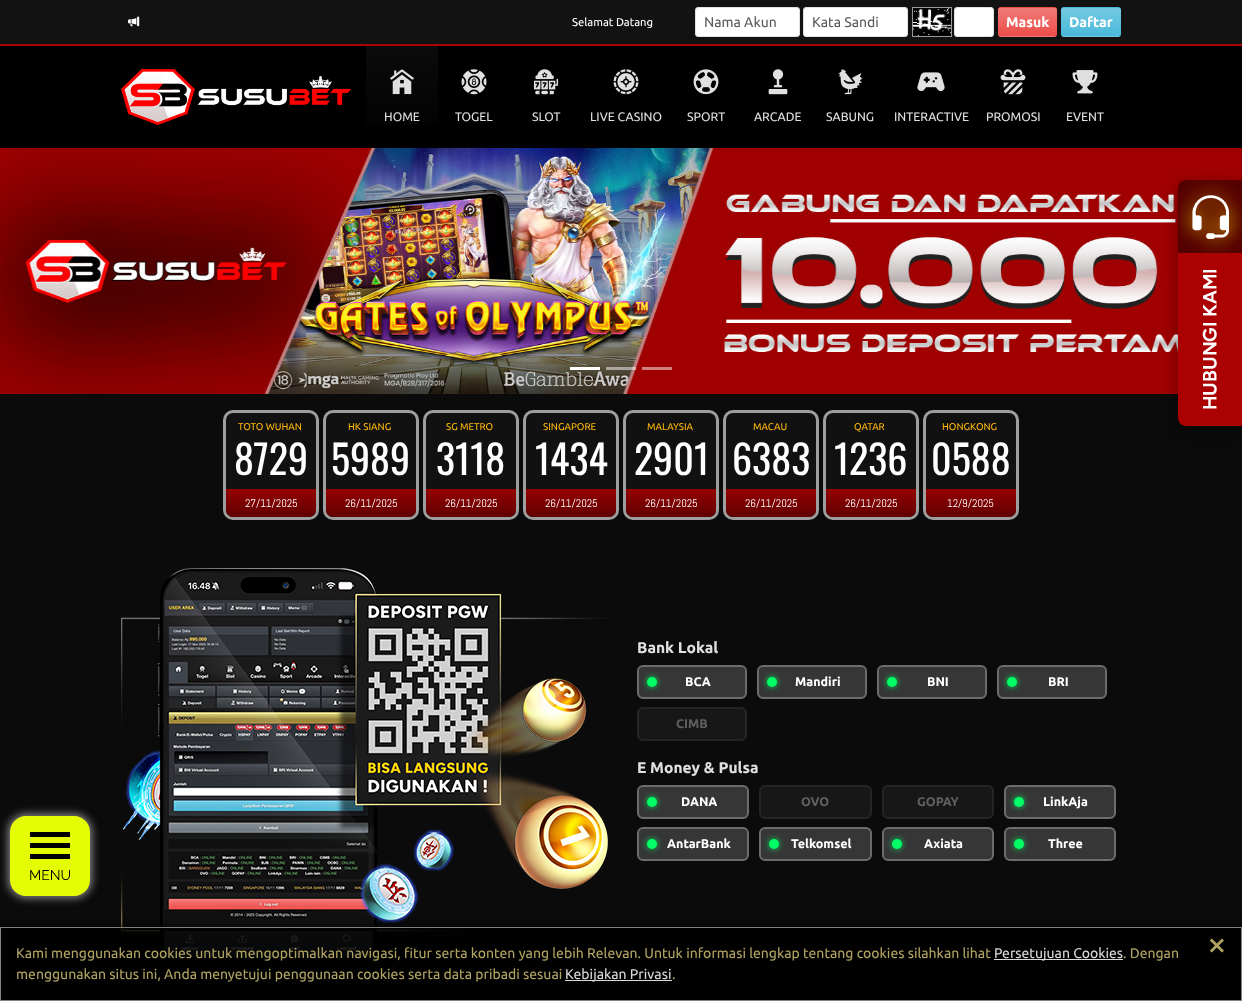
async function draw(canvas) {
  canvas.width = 1242;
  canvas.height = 1001;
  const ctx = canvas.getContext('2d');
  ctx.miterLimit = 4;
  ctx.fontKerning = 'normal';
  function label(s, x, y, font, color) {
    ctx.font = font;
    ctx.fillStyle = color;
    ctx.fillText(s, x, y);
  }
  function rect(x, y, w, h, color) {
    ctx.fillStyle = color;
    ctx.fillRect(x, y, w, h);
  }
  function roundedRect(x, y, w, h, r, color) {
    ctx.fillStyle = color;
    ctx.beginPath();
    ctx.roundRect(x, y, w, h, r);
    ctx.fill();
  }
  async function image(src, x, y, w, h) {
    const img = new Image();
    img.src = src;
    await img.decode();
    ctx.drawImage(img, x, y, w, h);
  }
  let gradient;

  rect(0, 0, 1242, 1001, '#000');
  rect(0, 0, 1242, 44, '#121212');
  rect(0, 44, 1242, 2, '#ab0102');
  await image('assets/img1.png', 128, 16, 12, 11);
  label('Selamat Datang', 572, 26, '11.25px Ubuntu', '#fff');
  ctx.beginPath();
  ctx.roundRect(695.5, 7.5, 104, 29, 2.5);
  ctx.fill();
  ctx.strokeStyle = '#dee2e6';
  ctx.stroke();
  label('Nama Akun', 704, 27, '14px Ubuntu', '#595c5f');
  ctx.fillStyle = '#fff';
  ctx.beginPath();
  ctx.roundRect(803.5, 7.5, 104, 29, 2.5);
  ctx.fill();
  ctx.stroke();
  label('Kata Sandi', 812, 27, '14px Ubuntu', '#595c5f');
  ctx.strokeStyle = '#999';
  ctx.strokeRect(912.5, 7.5, 39, 29);
  await image('assets/img2.png', 913, 8, 38, 28);
  ctx.fillStyle = '#fff';
  ctx.beginPath();
  ctx.roundRect(954.5, 7.5, 39, 29, 2.5);
  ctx.fill();
  ctx.strokeStyle = '#dee2e6';
  ctx.stroke();
  ctx.save();
  ctx.beginPath();
  ctx.roundRect(998, 7, 59, 30, 3);
  ctx.clip();
  gradient = ctx.createLinearGradient(1028, -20, 1028, 8);
  gradient.addColorStop(0, '#f17a77');
  gradient.addColorStop(0.6, '#ee5f5b');
  gradient.addColorStop(1, '#ec4d49');
  ctx.fillStyle = gradient;
  ctx.fillRect(998, 7, 59, 1);
  gradient = ctx.createLinearGradient(1028, 8, 1028, 36);
  gradient.addColorStop(0, '#f17a77');
  gradient.addColorStop(0.6, '#ee5f5b');
  gradient.addColorStop(1, '#ec4d49');
  ctx.fillStyle = gradient;
  ctx.fillRect(998, 8, 59, 28);
  gradient = ctx.createLinearGradient(1028, 36, 1028, 64);
  gradient.addColorStop(0, '#f17a77');
  gradient.addColorStop(0.6, '#ee5f5b');
  gradient.addColorStop(1, '#ec4d49');
  ctx.fillStyle = gradient;
  ctx.fillRect(998, 36, 59, 1);
  ctx.restore();
  label('Masuk', 1006, 27, 'bold 14px Ubuntu', '#fff');
  ctx.save();
  ctx.beginPath();
  ctx.roundRect(1061, 7, 60, 30, 3);
  ctx.clip();
  gradient = ctx.createLinearGradient(1091, -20, 1091, 8);
  gradient.addColorStop(0, '#74cae3');
  gradient.addColorStop(0.6, '#5bc0de');
  gradient.addColorStop(1, '#4ab9db');
  ctx.fillStyle = gradient;
  ctx.fillRect(1061, 7, 60, 1);
  gradient = ctx.createLinearGradient(1091, 8, 1091, 36);
  gradient.addColorStop(0, '#74cae3');
  gradient.addColorStop(0.6, '#5bc0de');
  gradient.addColorStop(1, '#4ab9db');
  ctx.fillStyle = gradient;
  ctx.fillRect(1061, 8, 60, 28);
  gradient = ctx.createLinearGradient(1091, 36, 1091, 64);
  gradient.addColorStop(0, '#74cae3');
  gradient.addColorStop(0.6, '#5bc0de');
  gradient.addColorStop(1, '#4ab9db');
  ctx.fillStyle = gradient;
  ctx.fillRect(1061, 36, 60, 1);
  ctx.restore();
  label('Daftar', 1069, 27, 'bold 14px Ubuntu', '#fff');
  await image('assets/img3.png', 121, 69, 230, 56);
  gradient = ctx.createLinearGradient(402, 46, 402, 148);
  gradient.addColorStop(0, '#0b0b0b');
  gradient.addColorStop(1, '#000');
  ctx.fillStyle = gradient;
  ctx.fillRect(366, 46, 72, 79);
  await image('assets/img4.png', 390, 69, 24, 26);
  label('HOME', 384, 121, '12.25px Ubuntu', '#e0e0e0');
  await image('assets/img5.png', 461, 69, 26, 26);
  label('TOGEL', 455, 121, '12.25px Ubuntu', '#e0e0e0');
  await image('assets/img6.png', 533, 69, 26, 26);
  label('SLOT', 532, 121, '12.25px Ubuntu', '#e0e0e0');
  await image('assets/img7.png', 613, 69, 26, 26);
  label('LIVE CASINO', 590, 121, '12.25px Ubuntu', '#e0e0e0');
  await image('assets/img8.png', 693, 69, 26, 26);
  label('SPORT', 687, 121, '12.25px Ubuntu', '#e0e0e0');
  await image('assets/img9.png', 768, 69, 20, 26);
  label('ARCADE', 754, 121, '12.25px Ubuntu', '#e0e0e0');
  await image('assets/img10.png', 838, 69, 24, 26);
  label('SABUNG', 826, 121, '12.25px Ubuntu', '#e0e0e0');
  await image('assets/img11.png', 917, 72, 28, 20);
  label('INTERACTIVE', 894, 121, '12.25px Ubuntu', '#e0e0e0');
  await image('assets/img12.png', 1000, 69, 26, 26);
  label('PROMOSI', 986, 121, '12.25px Ubuntu', '#e0e0e0');
  await image('assets/img13.png', 1072, 70, 26, 24);
  label('EVENT', 1066, 121, '12.25px Ubuntu', '#e0e0e0');
  await image('assets/img14.png', 0, 148, 1242, 246);
  rect(570, 367, 30, 3, '#fff');
  rect(606, 367, 30, 3, '#ffffff80');
  rect(642, 367, 30, 3, '#d08080');
  rect(0, 394, 1242, 607, '#0b0b0b');
  ctx.fillStyle = '#111';
  ctx.beginPath();
  ctx.roundRect(224.5, 411.5, 93, 107, 8.5);
  ctx.fill();
  ctx.strokeStyle = '#9e9e9e';
  ctx.lineWidth = 3;
  ctx.stroke();
  label('TOTO WUHAN', 238, 430, '9.75px Ubuntu', '#ffb809');
  label('8729', 234, 475, '40px Oswald', '#fff');
  gradient = ctx.createLinearGradient(271, 517, 271, 489);
  gradient.addColorStop(0, '#600002');
  gradient.addColorStop(1, '#960202');
  ctx.fillStyle = gradient;
  ctx.beginPath();
  ctx.roundRect(226, 489, 90, 28, [0, 0, 7, 7]);
  ctx.fill();
  label('27/11/2025', 245, 507, '11px Abel', '#fff');
  ctx.fillStyle = '#111';
  ctx.beginPath();
  ctx.roundRect(324.5, 411.5, 93, 107, 8.5);
  ctx.fill();
  ctx.stroke();
  label('HK SIANG', 348, 430, '9.75px Ubuntu', '#ffb809');
  label('5989', 331, 475, '40px Oswald', '#fff');
  gradient = ctx.createLinearGradient(371, 517, 371, 489);
  gradient.addColorStop(0, '#600002');
  gradient.addColorStop(1, '#960202');
  ctx.fillStyle = gradient;
  ctx.beginPath();
  ctx.roundRect(326, 489, 90, 28, [0, 0, 7, 7]);
  ctx.fill();
  label('26/11/2025', 345, 507, '11px Abel', '#fff');
  ctx.fillStyle = '#111';
  ctx.beginPath();
  ctx.roundRect(424.5, 411.5, 93, 107, 8.5);
  ctx.fill();
  ctx.stroke();
  label('SG METRO', 446, 430, '9.75px Ubuntu', '#ffb809');
  label('3118', 436, 475, '40px Oswald', '#fff');
  gradient = ctx.createLinearGradient(471, 517, 471, 489);
  gradient.addColorStop(0, '#600002');
  gradient.addColorStop(1, '#960202');
  ctx.fillStyle = gradient;
  ctx.beginPath();
  ctx.roundRect(426, 489, 90, 28, [0, 0, 7, 7]);
  ctx.fill();
  label('26/11/2025', 445, 507, '11px Abel', '#fff');
  ctx.fillStyle = '#111';
  ctx.beginPath();
  ctx.roundRect(524.5, 411.5, 93, 107, 8.5);
  ctx.fill();
  ctx.stroke();
  label('SINGAPORE', 543, 430, '9.75px Ubuntu', '#ffb809');
  label('1434', 535, 475, '40px Oswald', '#fff');
  gradient = ctx.createLinearGradient(571, 517, 571, 489);
  gradient.addColorStop(0, '#600002');
  gradient.addColorStop(1, '#960202');
  ctx.fillStyle = gradient;
  ctx.beginPath();
  ctx.roundRect(526, 489, 90, 28, [0, 0, 7, 7]);
  ctx.fill();
  label('26/11/2025', 545, 507, '11px Abel', '#fff');
  ctx.fillStyle = '#111';
  ctx.beginPath();
  ctx.roundRect(624.5, 411.5, 93, 107, 8.5);
  ctx.fill();
  ctx.stroke();
  label('MALAYSIA', 647, 430, '9.75px Ubuntu', '#ffb809');
  label('2901', 634, 475, '40px Oswald', '#fff');
  gradient = ctx.createLinearGradient(671, 517, 671, 489);
  gradient.addColorStop(0, '#600002');
  gradient.addColorStop(1, '#960202');
  ctx.fillStyle = gradient;
  ctx.beginPath();
  ctx.roundRect(626, 489, 90, 28, [0, 0, 7, 7]);
  ctx.fill();
  label('26/11/2025', 645, 507, '11px Abel', '#fff');
  ctx.fillStyle = '#111';
  ctx.beginPath();
  ctx.roundRect(724.5, 411.5, 93, 107, 8.5);
  ctx.fill();
  ctx.stroke();
  label('MACAU', 753, 430, '9.75px Ubuntu', '#ffb809');
  label('6383', 732, 475, '40px Oswald', '#fff');
  gradient = ctx.createLinearGradient(771, 517, 771, 489);
  gradient.addColorStop(0, '#600002');
  gradient.addColorStop(1, '#960202');
  ctx.fillStyle = gradient;
  ctx.beginPath();
  ctx.roundRect(726, 489, 90, 28, [0, 0, 7, 7]);
  ctx.fill();
  label('26/11/2025', 745, 507, '11px Abel', '#fff');
  ctx.fillStyle = '#111';
  ctx.beginPath();
  ctx.roundRect(824.5, 411.5, 93, 107, 8.5);
  ctx.fill();
  ctx.stroke();
  label('QATAR', 854, 430, '9.75px Ubuntu', '#ffb809');
  label('1236', 834, 475, '40px Oswald', '#fff');
  gradient = ctx.createLinearGradient(871, 517, 871, 489);
  gradient.addColorStop(0, '#600002');
  gradient.addColorStop(1, '#960202');
  ctx.fillStyle = gradient;
  ctx.beginPath();
  ctx.roundRect(826, 489, 90, 28, [0, 0, 7, 7]);
  ctx.fill();
  label('26/11/2025', 845, 507, '11px Abel', '#fff');
  ctx.fillStyle = '#111';
  ctx.beginPath();
  ctx.roundRect(924.5, 411.5, 93, 107, 8.5);
  ctx.fill();
  ctx.stroke();
  label('HONGKONG', 942, 430, '9.75px Ubuntu', '#ffb809');
  label('0588', 931, 475, '40px Oswald', '#fff');
  gradient = ctx.createLinearGradient(971, 517, 971, 489);
  gradient.addColorStop(0, '#600002');
  gradient.addColorStop(1, '#960202');
  ctx.fillStyle = gradient;
  ctx.beginPath();
  ctx.roundRect(926, 489, 90, 28, [0, 0, 7, 7]);
  ctx.fill();
  label('12/9/2025', 947, 507, '11px Abel', '#fff');
  await image('assets/img15.png', 121, 568, 488, 389);
  label('Bank Lokal', 637, 653, 'bold 15.5px Ubuntu', '#e0e0e0');
  ctx.fillStyle = '#363636';
  ctx.beginPath();
  ctx.roundRect(638, 666, 108, 32, 5);
  ctx.fill();
  ctx.strokeStyle = '#6c6c6c';
  ctx.lineWidth = 2;
  ctx.stroke();
  ctx.fillStyle = '#00ff66d9';
  ctx.filter = 'blur(3px)';
  ctx.beginPath();
  ctx.roundRect(647, 677, 10, 10, 5);
  ctx.fill();
  ctx.filter = 'none';
  ctx.fillStyle = '#0f6';
  ctx.beginPath();
  ctx.arc(652, 682, 5, 0, 2 * Math.PI);
  ctx.fill();
  label('BCA', 685, 686, 'bold 12.5px Ubuntu', '#fff');
  ctx.fillStyle = '#363636';
  ctx.beginPath();
  ctx.roundRect(758, 666, 108, 32, 5);
  ctx.fill();
  ctx.stroke();
  ctx.fillStyle = '#00ff66d9';
  ctx.filter = 'blur(3px)';
  ctx.beginPath();
  ctx.roundRect(767, 677, 10, 10, 5);
  ctx.fill();
  ctx.filter = 'none';
  ctx.fillStyle = '#0f6';
  ctx.beginPath();
  ctx.arc(772, 682, 5, 0, 2 * Math.PI);
  ctx.fill();
  label('Mandiri', 795, 686, 'bold 12.5px Ubuntu', '#fff');
  ctx.fillStyle = '#363636';
  ctx.beginPath();
  ctx.roundRect(878, 666, 108, 32, 5);
  ctx.fill();
  ctx.stroke();
  ctx.fillStyle = '#00ff66d9';
  ctx.filter = 'blur(3px)';
  ctx.beginPath();
  ctx.roundRect(887, 677, 10, 10, 5);
  ctx.fill();
  ctx.filter = 'none';
  ctx.fillStyle = '#0f6';
  ctx.beginPath();
  ctx.arc(892, 682, 5, 0, 2 * Math.PI);
  ctx.fill();
  label('BNI', 927, 686, 'bold 12.5px Ubuntu', '#fff');
  ctx.fillStyle = '#363636';
  ctx.beginPath();
  ctx.roundRect(998, 666, 108, 32, 5);
  ctx.fill();
  ctx.stroke();
  ctx.fillStyle = '#00ff66d9';
  ctx.filter = 'blur(3px)';
  ctx.beginPath();
  ctx.roundRect(1007, 677, 10, 10, 5);
  ctx.fill();
  ctx.filter = 'none';
  ctx.fillStyle = '#0f6';
  ctx.beginPath();
  ctx.arc(1012, 682, 5, 0, 2 * Math.PI);
  ctx.fill();
  label('BRI', 1048, 686, 'bold 12.5px Ubuntu', '#fff');
  ctx.fillStyle = '#171717';
  ctx.beginPath();
  ctx.roundRect(638, 708, 108, 32, 5);
  ctx.fill();
  ctx.strokeStyle = '#252525';
  ctx.stroke();
  label('CIMB', 676, 728, 'bold 12.5px Ubuntu', '#606060');
  label('E Money & Pulsa', 637, 773, 'bold 15.5px Ubuntu', '#e0e0e0');
  ctx.fillStyle = '#363636';
  ctx.beginPath();
  ctx.roundRect(638, 786, 110, 32, 5);
  ctx.fill();
  ctx.strokeStyle = '#6c6c6c';
  ctx.stroke();
  ctx.fillStyle = '#00ff66d9';
  ctx.filter = 'blur(3px)';
  ctx.beginPath();
  ctx.roundRect(647, 797, 10, 10, 5);
  ctx.fill();
  ctx.filter = 'none';
  ctx.fillStyle = '#0f6';
  ctx.beginPath();
  ctx.arc(652, 802, 5, 0, 2 * Math.PI);
  ctx.fill();
  label('DANA', 681, 806, 'bold 12.5px Ubuntu', '#fff');
  ctx.fillStyle = '#171717';
  ctx.beginPath();
  ctx.roundRect(760, 786, 111, 32, 5);
  ctx.fill();
  ctx.strokeStyle = '#252525';
  ctx.stroke();
  label('OVO', 801, 806, 'bold 12.5px Ubuntu', '#606060');
  ctx.fillStyle = '#171717';
  ctx.beginPath();
  ctx.roundRect(883, 786, 110, 32, 5);
  ctx.fill();
  ctx.stroke();
  label('GOPAY', 917, 806, 'bold 12.5px Ubuntu', '#606060');
  ctx.fillStyle = '#363636';
  ctx.beginPath();
  ctx.roundRect(1005, 786, 110, 32, 5);
  ctx.fill();
  ctx.strokeStyle = '#6c6c6c';
  ctx.stroke();
  ctx.fillStyle = '#00ff66d9';
  ctx.filter = 'blur(3px)';
  ctx.beginPath();
  ctx.roundRect(1014, 797, 10, 10, 5);
  ctx.fill();
  ctx.filter = 'none';
  ctx.fillStyle = '#0f6';
  ctx.beginPath();
  ctx.arc(1019, 802, 5, 0, 2 * Math.PI);
  ctx.fill();
  label('LinkAja', 1043, 806, 'bold 12.5px Ubuntu', '#fff');
  ctx.fillStyle = '#363636';
  ctx.beginPath();
  ctx.roundRect(638, 828, 110, 32, 5);
  ctx.fill();
  ctx.stroke();
  ctx.fillStyle = '#00ff66d9';
  ctx.filter = 'blur(3px)';
  ctx.beginPath();
  ctx.roundRect(647, 839, 10, 10, 5);
  ctx.fill();
  ctx.filter = 'none';
  ctx.fillStyle = '#0f6';
  ctx.beginPath();
  ctx.arc(652, 844, 5, 0, 2 * Math.PI);
  ctx.fill();
  label('AntarBank', 667, 848, 'bold 12.5px Ubuntu', '#fff');
  ctx.fillStyle = '#363636';
  ctx.beginPath();
  ctx.roundRect(760, 828, 111, 32, 5);
  ctx.fill();
  ctx.stroke();
  ctx.fillStyle = '#00ff66d9';
  ctx.filter = 'blur(3px)';
  ctx.beginPath();
  ctx.roundRect(769, 839, 10, 10, 5);
  ctx.fill();
  ctx.filter = 'none';
  ctx.fillStyle = '#0f6';
  ctx.beginPath();
  ctx.arc(774, 844, 5, 0, 2 * Math.PI);
  ctx.fill();
  label('Telkomsel', 791, 848, 'bold 12.5px Ubuntu', '#fff');
  ctx.fillStyle = '#363636';
  ctx.beginPath();
  ctx.roundRect(883, 828, 110, 32, 5);
  ctx.fill();
  ctx.stroke();
  ctx.fillStyle = '#00ff66d9';
  ctx.filter = 'blur(3px)';
  ctx.beginPath();
  ctx.roundRect(892, 839, 10, 10, 5);
  ctx.fill();
  ctx.filter = 'none';
  ctx.fillStyle = '#0f6';
  ctx.beginPath();
  ctx.arc(897, 844, 5, 0, 2 * Math.PI);
  ctx.fill();
  label('Axiata', 924, 848, 'bold 12.5px Ubuntu', '#fff');
  ctx.fillStyle = '#363636';
  ctx.beginPath();
  ctx.roundRect(1005, 828, 110, 32, 5);
  ctx.fill();
  ctx.stroke();
  ctx.fillStyle = '#00ff66d9';
  ctx.filter = 'blur(3px)';
  ctx.beginPath();
  ctx.roundRect(1014, 839, 10, 10, 5);
  ctx.fill();
  ctx.filter = 'none';
  ctx.fillStyle = '#0f6';
  ctx.beginPath();
  ctx.arc(1019, 844, 5, 0, 2 * Math.PI);
  ctx.fill();
  label('Three', 1048, 848, 'bold 12.5px Ubuntu', '#fff');
  ctx.fillStyle = '#888';
  ctx.filter = 'blur(4px)';
  ctx.beginPath();
  ctx.roundRect(8, 814, 84, 84, 18);
  ctx.fill();
  ctx.filter = 'none';
  roundedRect(10, 816, 80, 80, 16, '#e4fd05');
  rect(30, 832, 40, 5, '#000');
  rect(30, 843, 40, 5, '#000');
  rect(30, 854, 40, 5, '#000');
  label('MENU', 29, 880, '14px Raleway', '#000');
  ctx.fillStyle = '#00000059';
  ctx.filter = 'blur(7.5px)';
  ctx.beginPath();
  ctx.roundRect(1178, 185, 64, 246, 8);
  ctx.fill();
  ctx.filter = 'none';
  ctx.fillStyle = '#ab0102';
  ctx.beginPath();
  ctx.roundRect(1178, 180, 64, 246, [8, 0, 0, 8]);
  ctx.fill();
  await image('assets/img16.png', 1178, 180, 64, 229);
  ctx.save();
  ctx.beginPath();
  ctx.rect(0, 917, 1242, 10);
  ctx.clip();
  ctx.fillStyle = '#000000d9';
  ctx.filter = 'blur(5px)';
  ctx.beginPath();
  ctx.rect(0, 927, 1242, 74);
  ctx.fill();
  ctx.filter = 'none';
  ctx.restore();
  rect(0, 927, 1242, 74, '#000000d9');
  ctx.strokeStyle = '#999999d9';
  ctx.lineWidth = 1;
  ctx.strokeRect(0.5, 927.5, 1241, 73);
  label('×', 1207, 956, '35px Ubuntu', '#b1a463');
  label('Kami menggunakan cookies untuk mengoptimalkan navigasi, fitur serta konten yang lebih Relevan. Untuk informasi lengkap tentang cookies silahkan lihat', 16, 958, '14px Ubuntu', '#b1a463');
  rect(994, 959, 129, 1, '#dadada');
  label('Persetujuan Cookies', 994, 958, '14px Ubuntu', '#dadada');
  label('. Dengan', 1123, 958, '14px Ubuntu', '#b1a463');
  label('menggunakan situs ini, Anda menyetujui penggunaan cookies serta data pribadi sesuai', 16, 979, '14px Ubuntu', '#b1a463');
  rect(565, 980, 107, 1, '#dadada');
  label('Kebijakan Privasi', 565, 979, '14px Ubuntu', '#dadada');
  label('.', 672, 979, '14px Ubuntu', '#b1a463');
}

draw(document.querySelector('canvas'));
